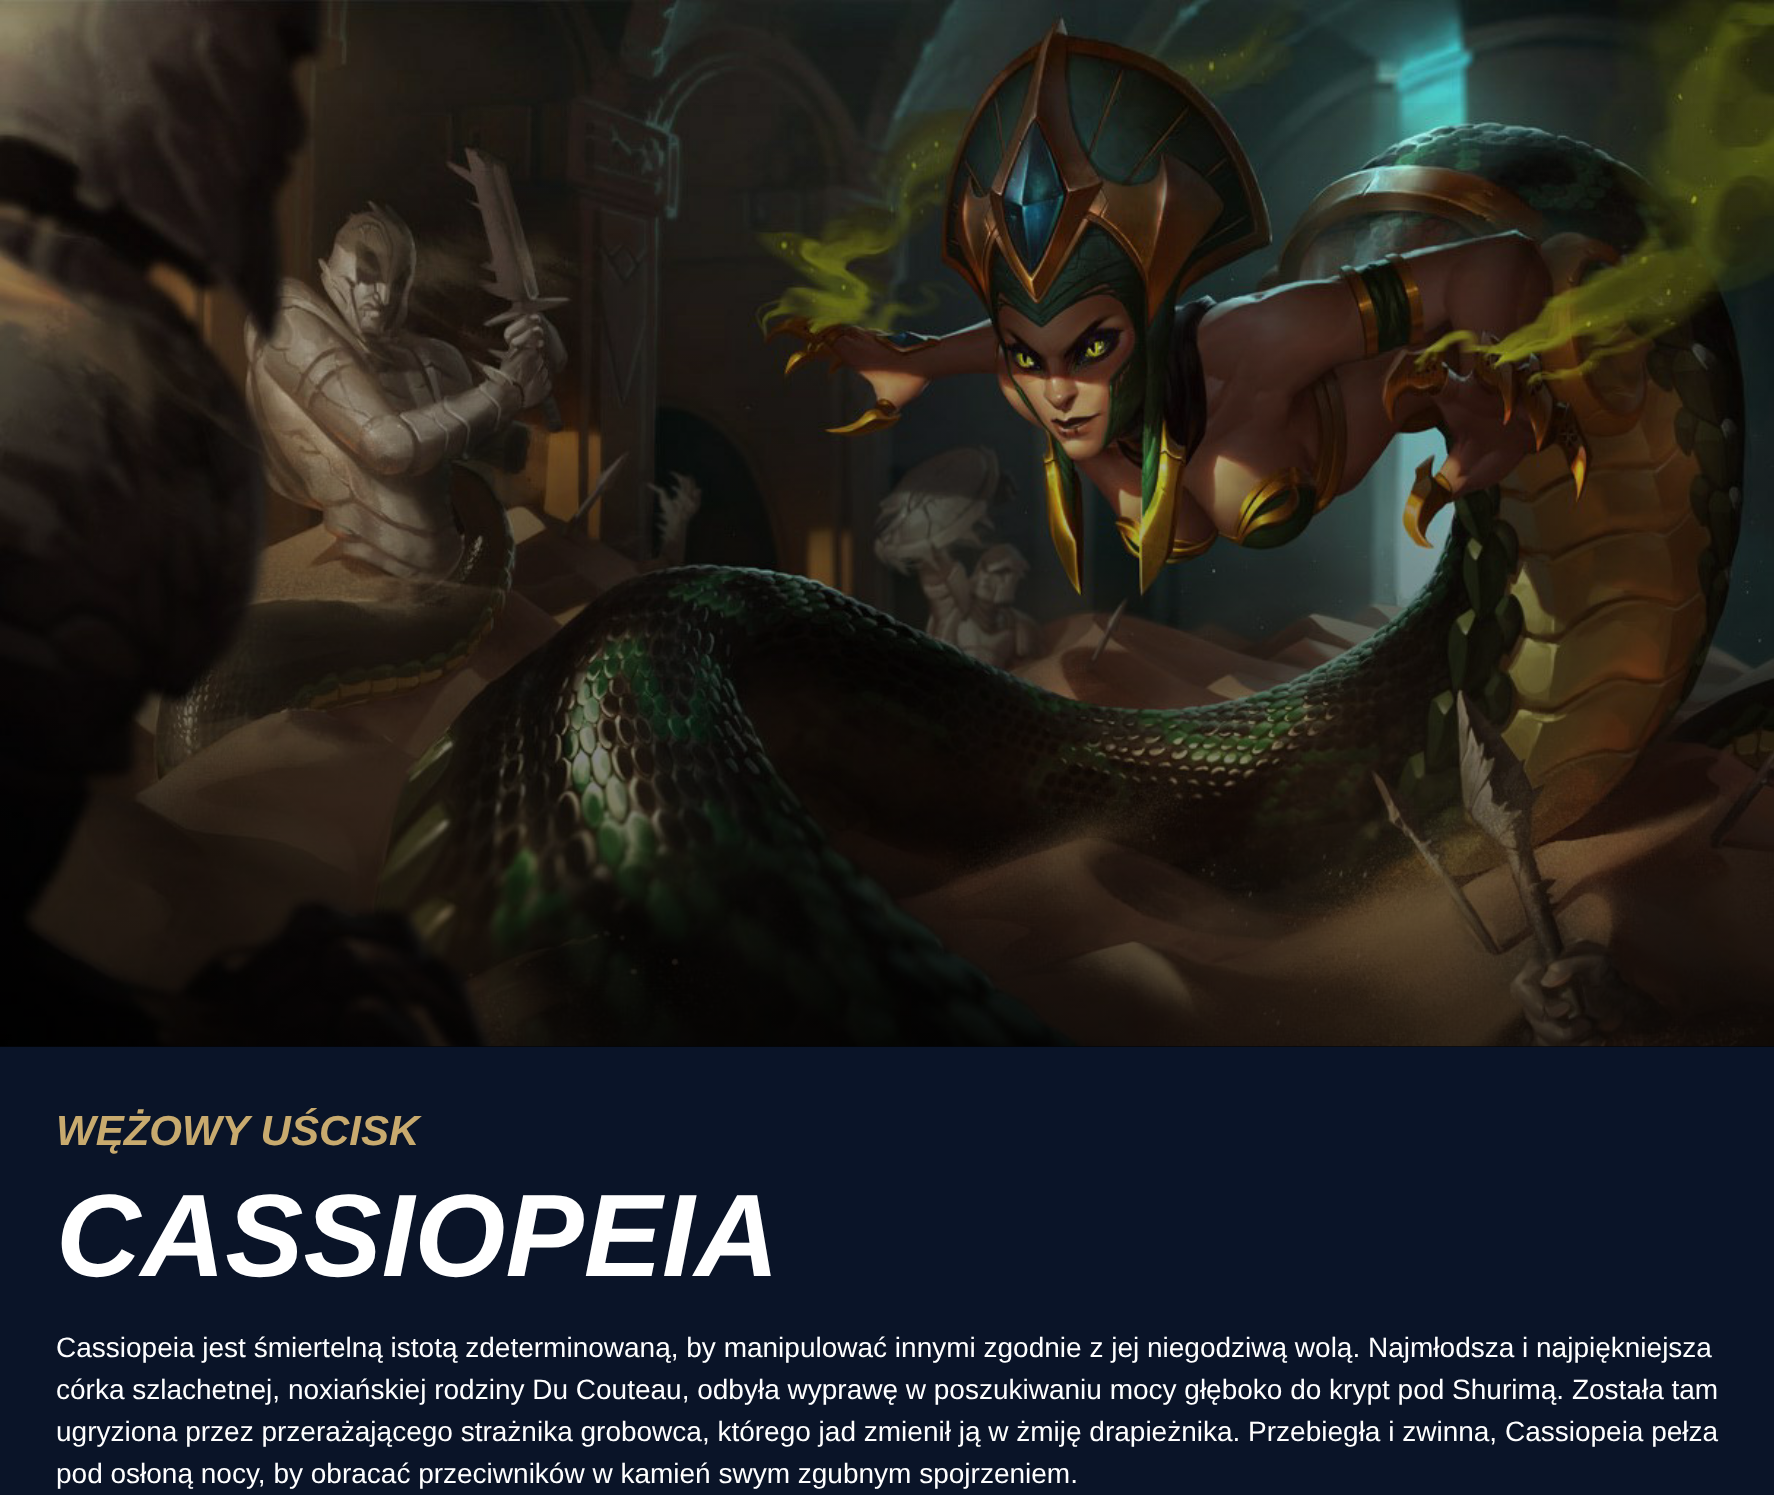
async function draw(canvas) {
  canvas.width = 1774;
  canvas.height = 1495;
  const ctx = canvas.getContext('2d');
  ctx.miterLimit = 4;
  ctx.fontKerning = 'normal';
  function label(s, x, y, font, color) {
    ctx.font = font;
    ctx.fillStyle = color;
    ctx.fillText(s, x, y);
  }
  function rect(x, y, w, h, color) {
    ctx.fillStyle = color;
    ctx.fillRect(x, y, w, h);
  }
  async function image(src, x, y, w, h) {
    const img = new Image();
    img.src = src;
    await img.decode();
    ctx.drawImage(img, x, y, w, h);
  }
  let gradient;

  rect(0, 0, 1774, 1495, '#0a1428');
  await image('assets/img1.png', 0, 0, 1774, 1047);
  gradient = ctx.createLinearGradient(887, 1047, 887, 0);
  gradient.addColorStop(0, '#000000b3');
  gradient.addColorStop(0.93, '#00000000');
  ctx.fillStyle = gradient;
  ctx.fillRect(0, 103, 1774, 944);
  label('WĘŻOWY UŚCISK', 56, 1145, 'italic bold 42px Liberation Sans', '#c8aa6e');
  label('CASSIOPEIA', 56, 1276, 'italic bold 117.25px Liberation Sans', '#fff');
  label('Cassiopeia jest śmiertelną istotą zdeterminowaną, by manipulować innymi zgodnie z jej niegodziwą wolą. Najmłodsza i najpiękniejsza', 56, 1357, '28px Liberation Sans', '#fff');
  label('córka szlachetnej, noxiańskiej rodziny Du Couteau, odbyła wyprawę w poszukiwaniu mocy głęboko do krypt pod Shurimą. Została tam', 56, 1399, '28px Liberation Sans', '#fff');
  label('ugryziona przez przerażającego strażnika grobowca, którego jad zmienił ją w żmiję drapieżnika. Przebiegła i zwinna, Cassiopeia pełza', 56, 1441, '28px Liberation Sans', '#fff');
  label('pod osłoną nocy, by obracać przeciwników w kamień swym zgubnym spojrzeniem.', 56, 1483, '28px Liberation Sans', '#fff');
}

draw(document.querySelector('canvas'));
